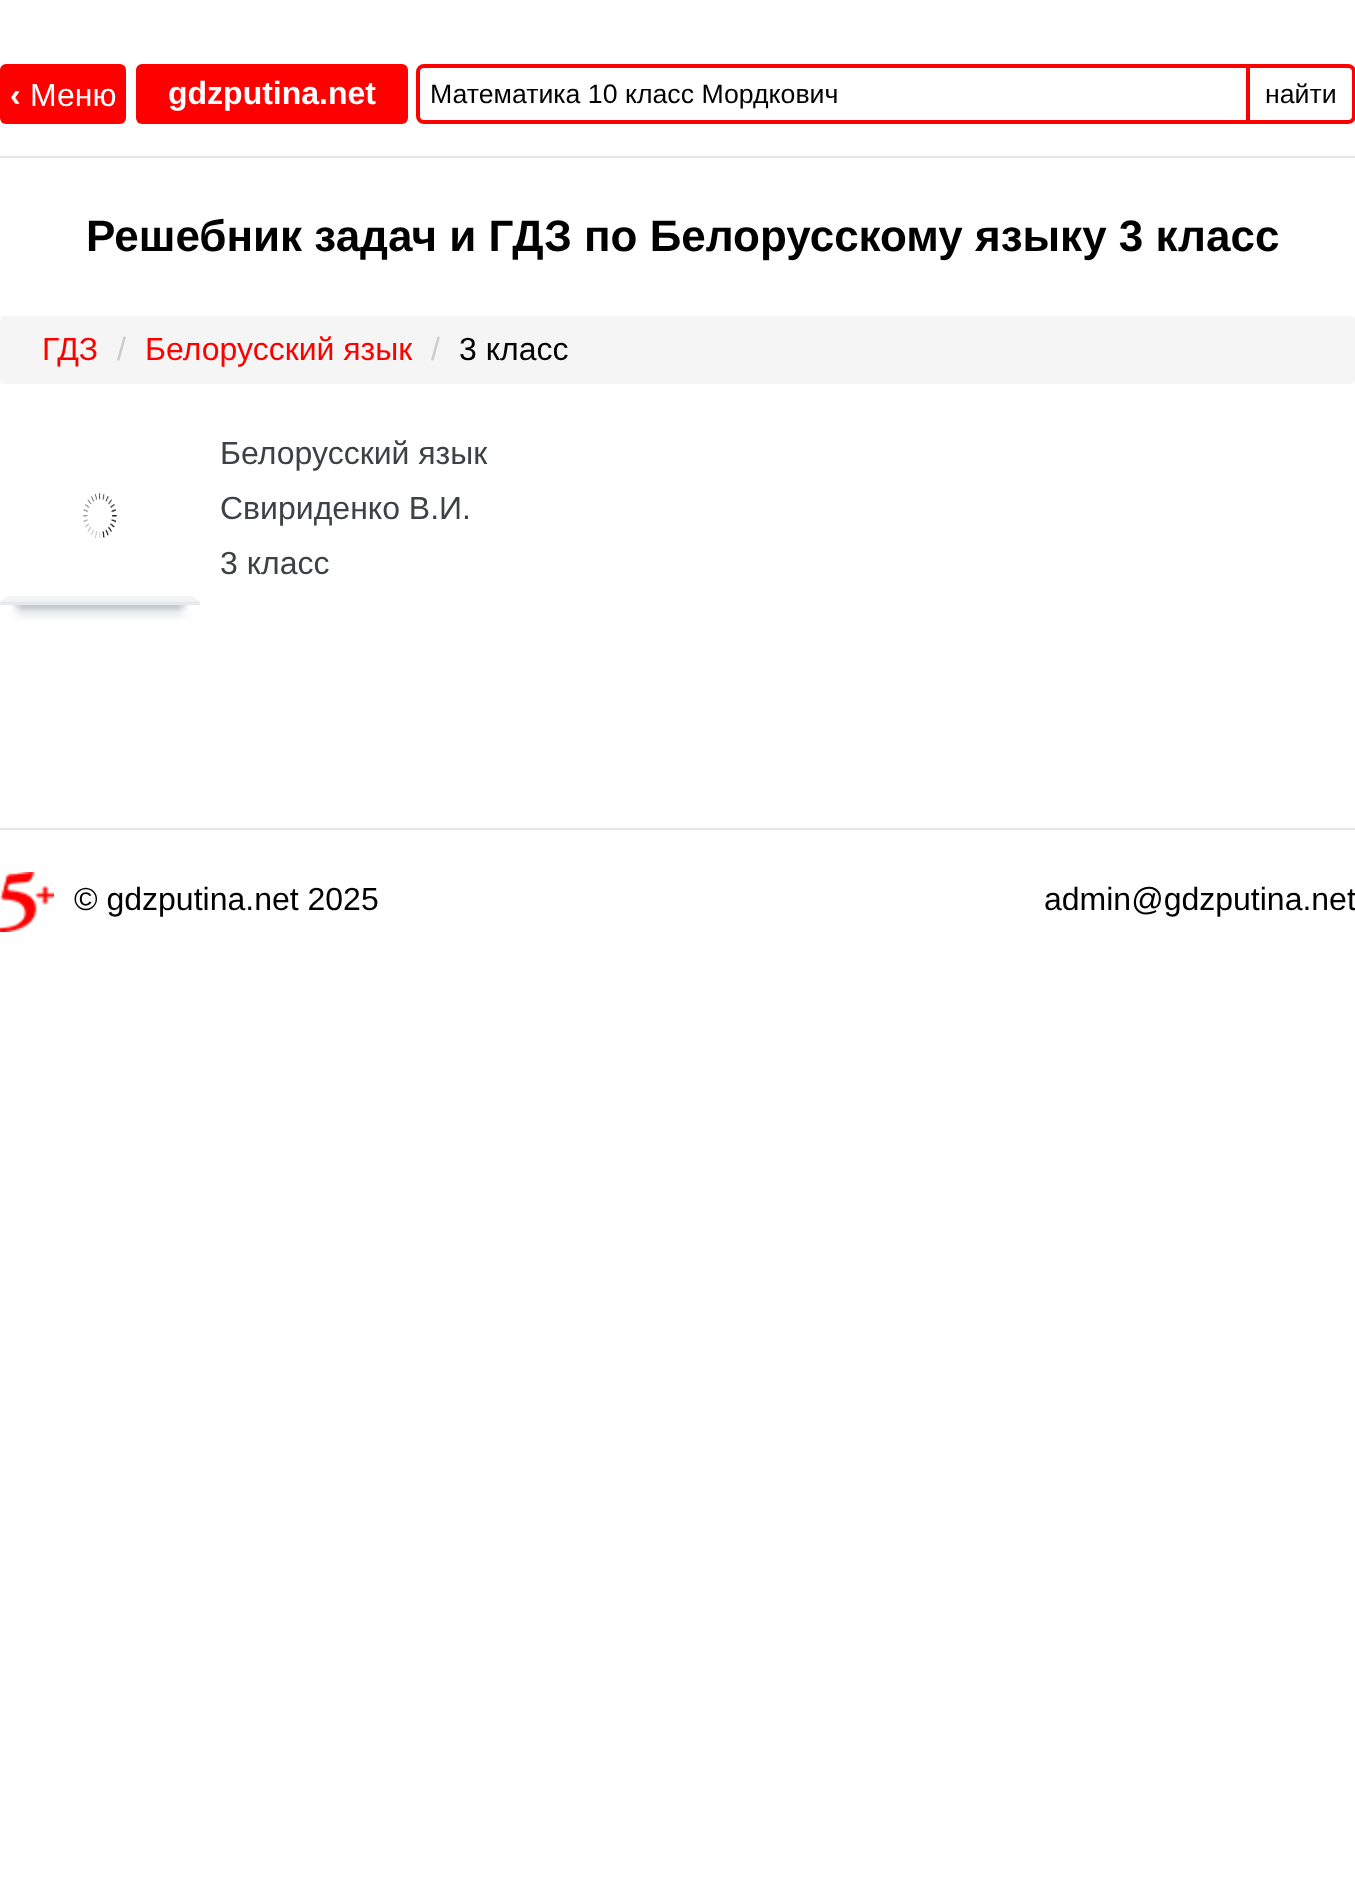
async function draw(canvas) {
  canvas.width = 1355;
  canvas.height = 1890;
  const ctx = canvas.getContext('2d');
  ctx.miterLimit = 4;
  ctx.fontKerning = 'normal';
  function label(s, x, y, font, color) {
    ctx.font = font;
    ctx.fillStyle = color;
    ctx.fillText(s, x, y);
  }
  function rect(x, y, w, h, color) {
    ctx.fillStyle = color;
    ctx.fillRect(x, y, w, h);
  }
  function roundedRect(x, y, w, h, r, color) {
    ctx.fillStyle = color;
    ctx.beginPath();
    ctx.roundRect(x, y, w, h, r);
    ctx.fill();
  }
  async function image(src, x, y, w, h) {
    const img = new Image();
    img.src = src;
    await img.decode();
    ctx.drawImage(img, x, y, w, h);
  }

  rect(0, 0, 1355, 1890, '#fff');
  rect(0, 156, 1355, 2, '#e5e5e5');
  roundedRect(0, 64, 126, 60, 6, '#fe0000');
  label('‹', 10, 106, 'bold 32px Liberation Sans', '#fff');
  label('Меню', 30, 106, '32px Liberation Sans', '#fff');
  roundedRect(136, 64, 272, 60, 6, '#fe0000');
  label('gdzputina.net', 168, 104, 'bold 32px Liberation Sans', '#fff');
  ctx.beginPath();
  ctx.roundRect(418, 66, 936, 56, 6);
  ctx.strokeStyle = '#fe0000';
  ctx.lineWidth = 4;
  ctx.stroke();
  label('Математика 10 класс Мордкович', 430, 103, '26.7px Liberation Sans', '#000');
  rect(1246, 68, 4, 52, '#fe0000');
  label('найти', 1265, 103, '26.7px Liberation Sans', '#000');
  label('Решебник задач и ГДЗ по Белорусскому языку 3 класс', 86, 251, 'bold 44px Liberation Sans', '#000');
  roundedRect(0, 316, 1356, 68, 6, '#f5f5f5');
  label('ГДЗ', 42, 360, '32px Liberation Sans', '#fe0000');
  label('/', 117, 360, '32px Liberation Sans', '#ccc');
  label('Белорусский язык', 145, 360, '32px Liberation Sans', '#fe0000');
  label('/', 431, 360, '32px Liberation Sans', '#ccc');
  label('3 класс', 459, 360, '32px Liberation Sans', '#000');
  await image('assets/img1.png', 0, 493, 200, 127);
  await image('assets/img2.png', 83, 493, 34, 45);
  label('Белорусский язык', 220, 464, '32px Liberation Sans', '#3c4144');
  label('Свириденко В.И.', 220, 519, '32px Liberation Sans', '#3c4144');
  label('3 класс', 220, 574, '32px Liberation Sans', '#3c4144');
  rect(0, 828, 1355, 2, '#e5e5e5');
  await image('assets/img3.png', 0, 872, 54, 60);
  label('© gdzputina.net 2025', 74, 910, '32px Liberation Sans', '#000');
  label('admin@gdzputina.net', 1044, 910, '32px Liberation Sans', '#000');
}

draw(document.querySelector('canvas'));
